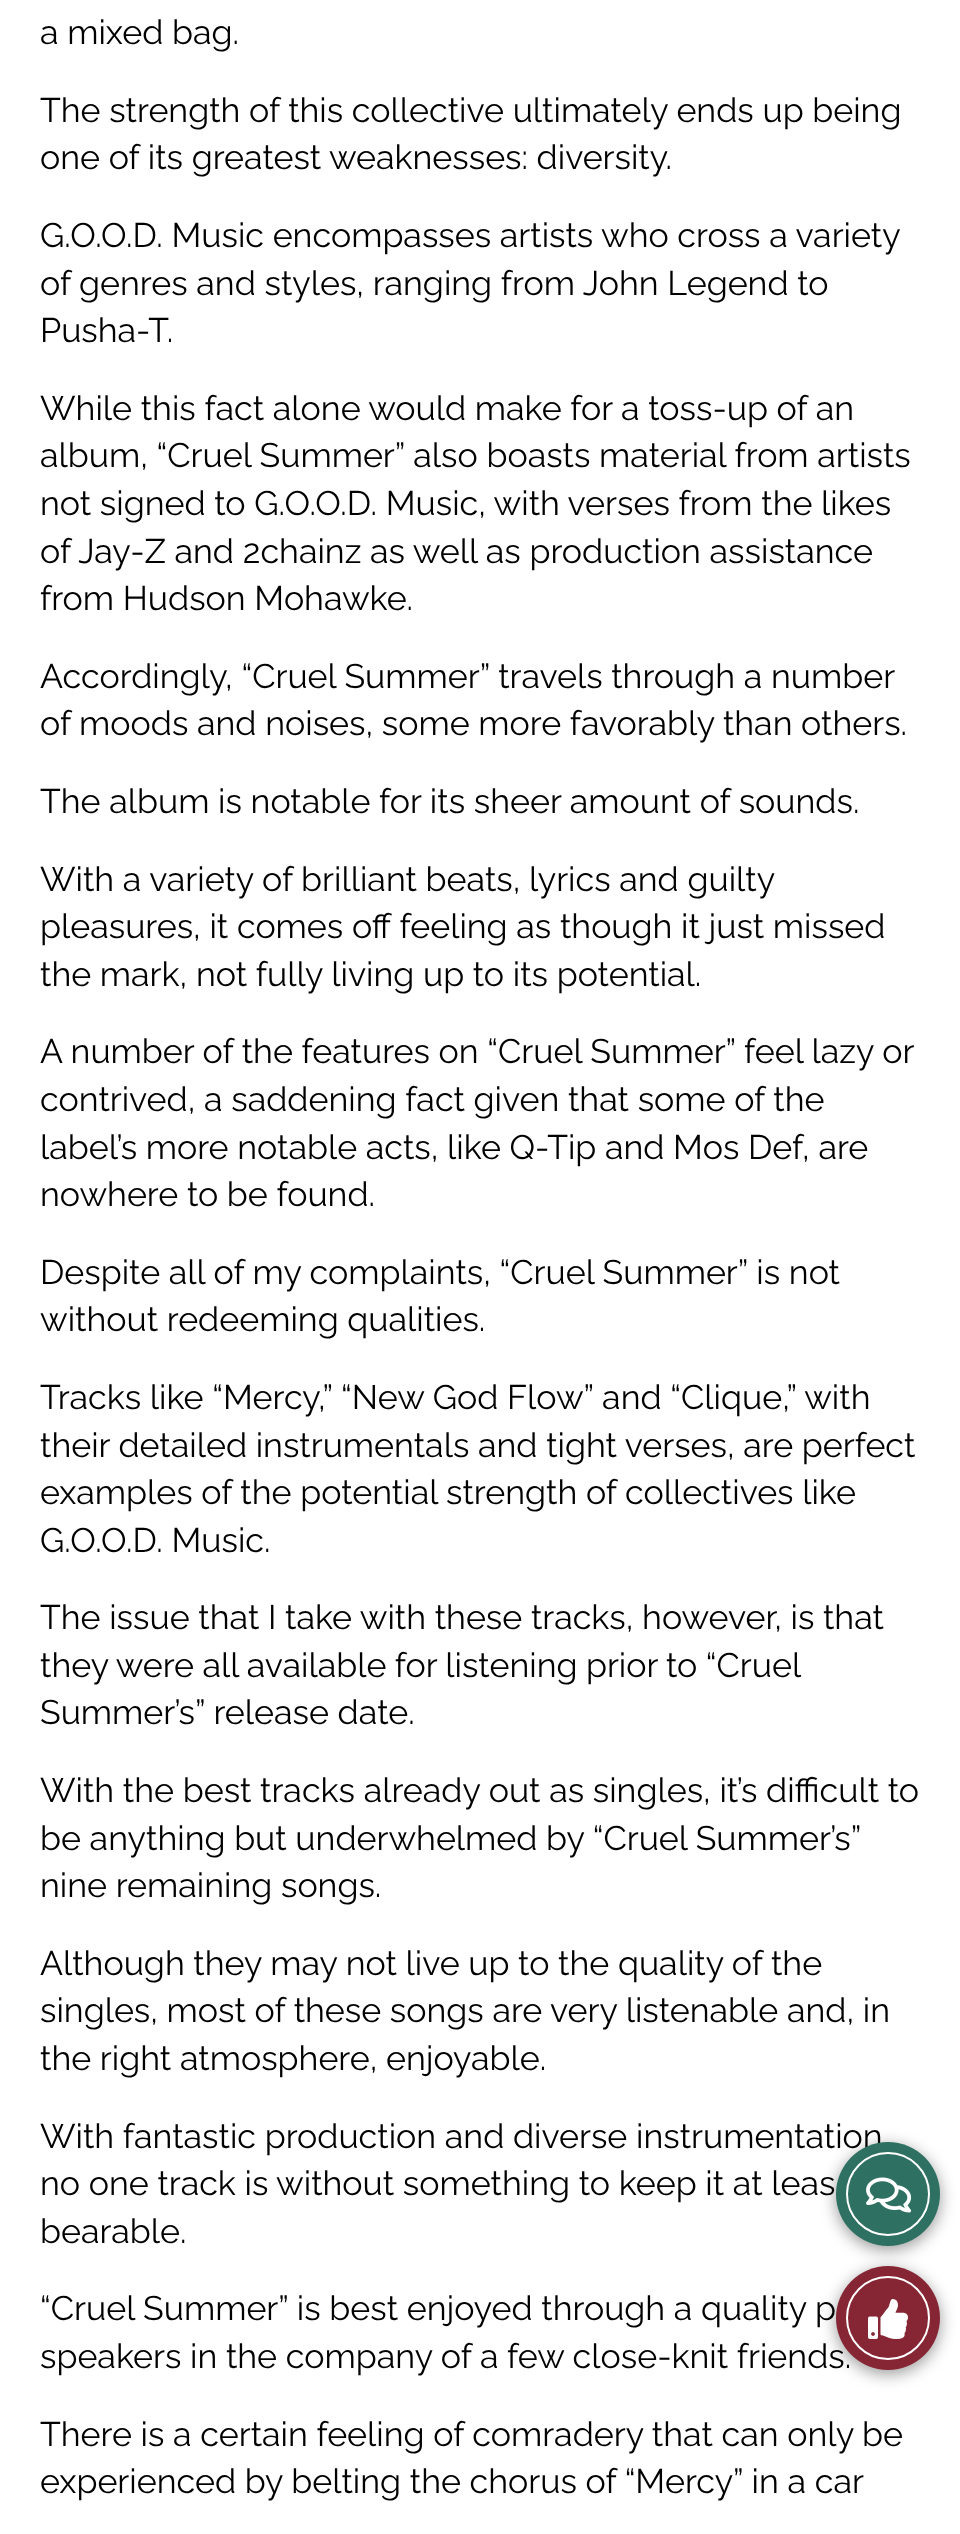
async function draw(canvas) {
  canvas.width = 960;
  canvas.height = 2534;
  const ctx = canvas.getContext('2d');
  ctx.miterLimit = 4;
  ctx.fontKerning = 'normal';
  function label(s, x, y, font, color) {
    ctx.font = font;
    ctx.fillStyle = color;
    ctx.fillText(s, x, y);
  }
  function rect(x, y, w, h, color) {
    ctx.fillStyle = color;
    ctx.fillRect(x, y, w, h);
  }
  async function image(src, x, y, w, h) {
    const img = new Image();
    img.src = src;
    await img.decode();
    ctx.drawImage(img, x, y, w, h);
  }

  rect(0, 0, 960, 2534, '#fff');
  label('a mixed bag.', 40, 44, '34px Raleway', '#000');
  label('The strength of this collective ultimately ends up being', 40, 122, '34px Raleway', '#000');
  label('one of its greatest weaknesses: diversity.', 40, 169, '34px Raleway', '#000');
  label('G.O.O.D. Music encompasses artists who cross a variety', 40, 247, '34px Raleway', '#000');
  label('of genres and styles, ranging from John Legend to', 40, 295, '34px Raleway', '#000');
  label('Pusha-T.', 40, 342, '34px Raleway', '#000');
  label('While this fact alone would make for a toss-up of an', 40, 420, '34px Raleway', '#000');
  label('album, “Cruel Summer” also boasts material from artists', 40, 467, '34px Raleway', '#000');
  label('not signed to G.O.O.D. Music, with verses from the likes', 40, 515, '34px Raleway', '#000');
  label('of Jay-Z and 2chainz as well as production assistance', 40, 563, '34px Raleway', '#000');
  label('from Hudson Mohawke.', 40, 610, '34px Raleway', '#000');
  label('Accordingly, “Cruel Summer” travels through a number', 40, 688, '34px Raleway', '#000');
  label('of moods and noises, some more favorably than others.', 40, 735, '34px Raleway', '#000');
  label('The album is notable for its sheer amount of sounds.', 40, 813, '34px Raleway', '#000');
  label('With a variety of brilliant beats, lyrics and guilty', 40, 891, '34px Raleway', '#000');
  label('pleasures, it comes off feeling as though it just missed', 40, 938, '34px Raleway', '#000');
  label('the mark, not fully living up to its potential.', 40, 986, '34px Raleway', '#000');
  label('A number of the features on “Cruel Summer” feel lazy or', 40, 1063, '34px Raleway', '#000');
  label('contrived, a saddening fact given that some of the', 40, 1111, '34px Raleway', '#000');
  label('label’s more notable acts, like Q-Tip and Mos Def, are', 40, 1159, '34px Raleway', '#000');
  label('nowhere to be found.', 40, 1206, '34px Raleway', '#000');
  label('Despite all of my complaints, “Cruel Summer” is not', 40, 1284, '34px Raleway', '#000');
  label('without redeeming qualities.', 40, 1331, '34px Raleway', '#000');
  label('Tracks like “Mercy,” “New God Flow” and “Clique,” with', 40, 1409, '34px Raleway', '#000');
  label('their detailed instrumentals and tight verses, are perfect', 40, 1457, '34px Raleway', '#000');
  label('examples of the potential strength of collectives like', 40, 1504, '34px Raleway', '#000');
  label('G.O.O.D. Music.', 40, 1552, '34px Raleway', '#000');
  label('The issue that I take with these tracks, however, is that', 40, 1629, '34px Raleway', '#000');
  ctx.wordSpacing = '-0.25px';
  label('they were all available for listening prior to “Cruel', 40, 1677, '34px Raleway', '#000');
  ctx.wordSpacing = '0px';
  label('Summer’s” release date.', 40, 1724, '34px Raleway', '#000');
  label('With the best tracks already out as singles, it’s difficult to', 40, 1802, '34px Raleway', '#000');
  label('be anything but underwhelmed by “Cruel Summer’s”', 40, 1850, '34px Raleway', '#000');
  label('nine remaining songs.', 40, 1897, '34px Raleway', '#000');
  label('Although they may not live up to the quality of the', 40, 1975, '34px Raleway', '#000');
  label('singles, most of these songs are very listenable and, in', 40, 2022, '34px Raleway', '#000');
  label('the right atmosphere, enjoyable.', 40, 2070, '34px Raleway', '#000');
  label('With fantastic production and diverse instrumentation', 40, 2148, '34px Raleway', '#000');
  label('no one track is without something to keep it at leas', 40, 2195, '34px Raleway', '#000');
  label('bearable.', 40, 2243, '34px Raleway', '#000');
  label('“Cruel Summer” is best enjoyed through a quality p', 40, 2320, '34px Raleway', '#000');
  label('speakers in the company of a few close-knit friends.', 40, 2368, '34px Raleway', '#000');
  label('There is a certain feeling of comradery that can only be', 40, 2446, '34px Raleway', '#000');
  label('experienced by belting the chorus of “Mercy” in a car', 40, 2493, '34px Raleway', '#000');
  ctx.fillStyle = '#00000066';
  ctx.filter = 'blur(8px)';
  ctx.beginPath();
  ctx.roundRect(836, 2146, 104, 104, 52);
  ctx.fill();
  ctx.filter = 'none';
  ctx.fillStyle = '#2e7061';
  ctx.beginPath();
  ctx.arc(888, 2194, 52, 0, 2 * Math.PI);
  ctx.fill();
  ctx.beginPath();
  ctx.arc(888, 2194, 41, 0, 2 * Math.PI);
  ctx.strokeStyle = '#fff';
  ctx.lineWidth = 2;
  ctx.stroke();
  await image('assets/img1.png', 866, 2177, 46, 36);
  ctx.fillStyle = '#00000066';
  ctx.filter = 'blur(8px)';
  ctx.beginPath();
  ctx.roundRect(836, 2270, 104, 104, 52);
  ctx.fill();
  ctx.filter = 'none';
  ctx.fillStyle = '#862635';
  ctx.beginPath();
  ctx.arc(888, 2318, 52, 0, 2 * Math.PI);
  ctx.fill();
  ctx.beginPath();
  ctx.arc(888, 2318, 41, 0, 2 * Math.PI);
  ctx.stroke();
  await image('assets/img2.png', 868, 2299, 40, 40);
}

draw(document.querySelector('canvas'));
